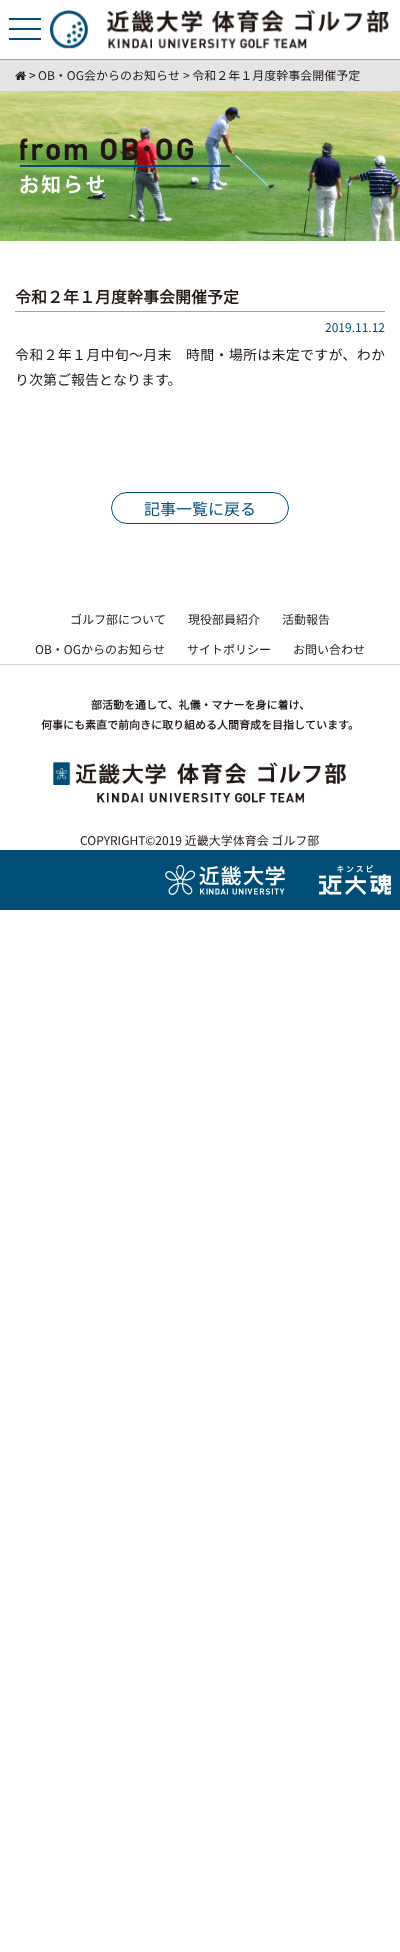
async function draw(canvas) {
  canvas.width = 400;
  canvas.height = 1952;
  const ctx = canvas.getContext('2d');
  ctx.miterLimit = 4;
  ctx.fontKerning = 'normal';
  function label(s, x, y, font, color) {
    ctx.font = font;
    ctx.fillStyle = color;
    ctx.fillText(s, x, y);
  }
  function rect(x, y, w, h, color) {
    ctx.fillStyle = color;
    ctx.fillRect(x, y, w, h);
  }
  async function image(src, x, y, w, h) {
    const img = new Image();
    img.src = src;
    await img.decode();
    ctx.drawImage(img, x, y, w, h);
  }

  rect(0, 0, 400, 1952, '#fff');
  rect(0, 59, 400, 1, '#a6a2a1');
  rect(9, 28, 32, 2, '#004e78');
  rect(9, 18, 32, 2, '#004e78');
  rect(9, 38, 32, 2, '#004e78');
  await image('assets/img1.png', 50, 10, 339, 39);
  rect(0, 60, 400, 31, '#e5e5e5');
  await image('assets/img2.png', 15, 71, 11, 9);
  label('>', 29, 80, '12px Noto Sans CJK JP', '#201714');
  label('OB・OG会からのお知らせ', 38, 80, '12px Noto Sans CJK JP', '#222');
  label('> 令和２年１月度幹事会開催予定', 183, 80, '12px Noto Sans CJK JP', '#201714');
  await image('assets/img3.png', 0, 91, 400, 150);
  await image('assets/img4.png', 20, 138, 210, 56);
  rect(15, 311, 370, 1, '#a6a2a1');
  label('令和２年１月度幹事会開催予定', 15, 303, 'bold 16px Noto Sans CJK JP', '#201714');
  label('2019.11.12', 325, 332, '12px Noto Sans CJK JP', '#004e78');
  ctx.letterSpacing = '0.25px';
  label('令和２年１月中旬～月末　時間・場所は未定ですが、わか', 15, 360, '14px Noto Sans CJK JP', '#201714');
  ctx.letterSpacing = '0px';
  label('り次第ご報告となります。', 15, 385, '14px Noto Sans CJK JP', '#201714');
  ctx.beginPath();
  ctx.roundRect(111.5, 492.5, 177, 31, 15.5);
  ctx.strokeStyle = '#004e78';
  ctx.stroke();
  label('記事一覧に戻る', 144, 515, '16px Noto Sans CJK JP', '#004e78');
  rect(0, 664, 400, 1, '#d6d6d6');
  label('ゴルフ部について', 70, 624, '12px Noto Sans CJK JP', '#222');
  label('現役部員紹介', 188, 624, '12px Noto Sans CJK JP', '#222');
  label('活動報告', 282, 624, '12px Noto Sans CJK JP', '#222');
  label('OB・OGからのお知らせ', 35, 654, '12px Noto Sans CJK JP', '#222');
  label('サイトポリシー', 187, 654, '12px Noto Sans CJK JP', '#222');
  label('お問い合わせ', 293, 654, '12px Noto Sans CJK JP', '#222');
  label('部活動を通して、礼儀・マナーを身に着け、', 91, 709, 'bold 11px Noto Sans CJK JP', '#201714');
  label('何事にも素直で前向きに取り組める人間育成を目指しています。', 41, 729, 'bold 11px Noto Sans CJK JP', '#201714');
  await image('assets/img5.png', 53, 762, 293, 41);
  label('COPYRIGHT©2019 近畿大学体育会 ゴルフ部', 80, 845, '12px Noto Sans CJK JP', '#201714');
  rect(0, 850, 400, 60, '#004e78');
  await image('assets/img6.png', 165, 864, 120, 31);
  await image('assets/img7.png', 319, 865, 72, 30);
}

draw(document.querySelector('canvas'));
